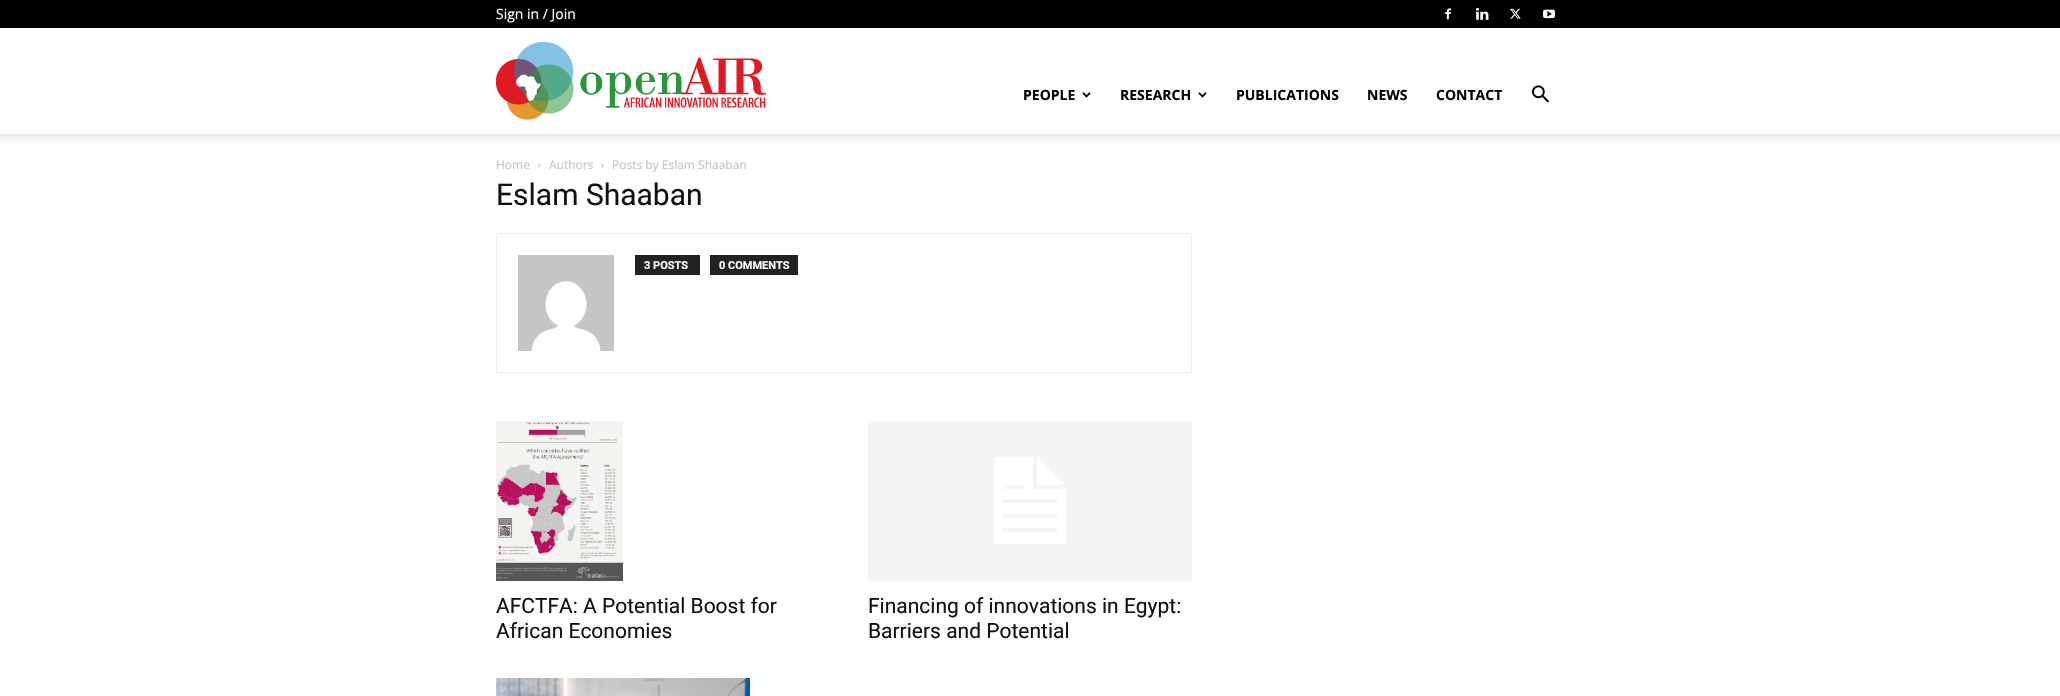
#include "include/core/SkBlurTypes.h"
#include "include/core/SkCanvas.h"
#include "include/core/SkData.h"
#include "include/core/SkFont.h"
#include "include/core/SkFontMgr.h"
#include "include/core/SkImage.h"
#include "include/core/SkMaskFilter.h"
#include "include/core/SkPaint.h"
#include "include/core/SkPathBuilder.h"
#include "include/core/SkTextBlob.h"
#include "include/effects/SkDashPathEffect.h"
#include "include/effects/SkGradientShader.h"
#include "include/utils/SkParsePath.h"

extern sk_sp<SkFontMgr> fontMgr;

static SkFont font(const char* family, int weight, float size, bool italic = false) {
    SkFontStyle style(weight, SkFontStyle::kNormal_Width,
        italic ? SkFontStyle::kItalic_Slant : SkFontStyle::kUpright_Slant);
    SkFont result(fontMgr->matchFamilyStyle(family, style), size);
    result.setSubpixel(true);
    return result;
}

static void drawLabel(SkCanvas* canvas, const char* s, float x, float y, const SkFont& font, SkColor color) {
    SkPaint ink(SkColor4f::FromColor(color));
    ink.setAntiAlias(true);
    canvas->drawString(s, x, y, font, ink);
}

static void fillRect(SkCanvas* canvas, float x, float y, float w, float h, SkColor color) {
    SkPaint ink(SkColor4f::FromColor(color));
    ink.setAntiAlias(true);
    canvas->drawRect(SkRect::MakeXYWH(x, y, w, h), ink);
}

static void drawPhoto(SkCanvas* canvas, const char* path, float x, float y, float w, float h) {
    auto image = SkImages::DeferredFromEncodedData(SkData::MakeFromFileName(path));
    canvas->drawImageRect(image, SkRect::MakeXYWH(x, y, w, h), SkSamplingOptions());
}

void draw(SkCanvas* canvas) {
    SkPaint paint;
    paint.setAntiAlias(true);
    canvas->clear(0xFFFFFFFF);
    fillRect(canvas, 0, 0, 2060, 28, 0xFF000000);
    SkFont font1 = font("Open Sans", 400, 14);
    drawLabel(canvas, "Sign in / Join", 496, 19, font1, 0xFFFFFFFF);
    drawPhoto(canvas, "assets/img1.png", 1445, 8, 6, 12);
    drawPhoto(canvas, "assets/img2.png", 1476, 7, 13, 13);
    drawPhoto(canvas, "assets/img3.png", 1510, 8, 11, 11);
    drawPhoto(canvas, "assets/img4.png", 1543, 9, 12, 10);
    drawPhoto(canvas, "assets/img5.png", 496, 42, 270, 78);
    SkFont font2 = font("Open Sans", 700, 14);
    drawLabel(canvas, "PEOPLE", 1023, 100, font2, 0xFF000000);
    drawPhoto(canvas, "assets/img6.png", 1082, 92, 9, 6);
    drawLabel(canvas, "RESEARCH", 1120, 100, font2, 0xFF000000);
    drawPhoto(canvas, "assets/img6.png", 1198, 92, 9, 6);
    drawLabel(canvas, "PUBLICATIONS", 1236, 100, font2, 0xFF000000);
    drawLabel(canvas, "NEWS", 1367, 100, font2, 0xFF000000);
    drawLabel(canvas, "CONTACT", 1436, 100, font2, 0xFF000000);
    drawPhoto(canvas, "assets/img7.png", 1532, 85, 17, 18);
    drawPhoto(canvas, "assets/img8.png", 0, 134, 2060, 9);
    SkFont font3 = font("Open Sans", 400, 12);
    drawLabel(canvas, "Home", 496, 169, font3, 0xFFC3C3C3);
    drawPhoto(canvas, "assets/img9.png", 538, 163, 3, 5);
    drawLabel(canvas, "Authors", 549, 169, font3, 0xFFC3C3C3);
    drawPhoto(canvas, "assets/img9.png", 601, 163, 3, 5);
    drawLabel(canvas, "Posts by Eslam Shaaban", 612, 169, font3, 0xFFC3C3C3);
    SkFont font4 = font("Roboto", 400, 30);
    drawLabel(canvas, "Eslam Shaaban", 496, 205, font4, 0xFF111111);
    paint.setStroke(true);
    paint.setStrokeWidth(1);
    paint.setColor(0xFFEDEDED);
    canvas->drawRect(SkRect::MakeXYWH(496.5f, 233.5f, 695, 139), paint);
    drawPhoto(canvas, "assets/img10.png", 518, 255, 96, 96);
    fillRect(canvas, 635, 255, 65, 20, 0xFF222222);
    SkFont font5 = font("Roboto", 700, 11);
    drawLabel(canvas, "3 POSTS", 644, 269, font5, 0xFFFFFFFF);
    fillRect(canvas, 710, 255, 88, 20, 0xFF222222);
    drawLabel(canvas, "0 COMMENTS", 719, 269, font5, 0xFFFFFFFF);
    drawPhoto(canvas, "assets/img11.png", 496, 421, 127, 160);
    SkFont font6 = font("Roboto", 400, 21);
    drawLabel(canvas, "AFCTFA: A Potential Boost for", 496, 613, font6, 0xFF111111);
    drawLabel(canvas, "African Economies", 496, 638, font6, 0xFF111111);
    drawPhoto(canvas, "assets/img12.png", 868, 421, 324, 160);
    drawLabel(canvas, "Financing of innovations in Egypt:", 868, 613, font6, 0xFF111111);
    drawLabel(canvas, "Barriers and Potential", 868, 638, font6, 0xFF111111);
    drawPhoto(canvas, "assets/img13.png", 496, 678, 254, 18);
}
